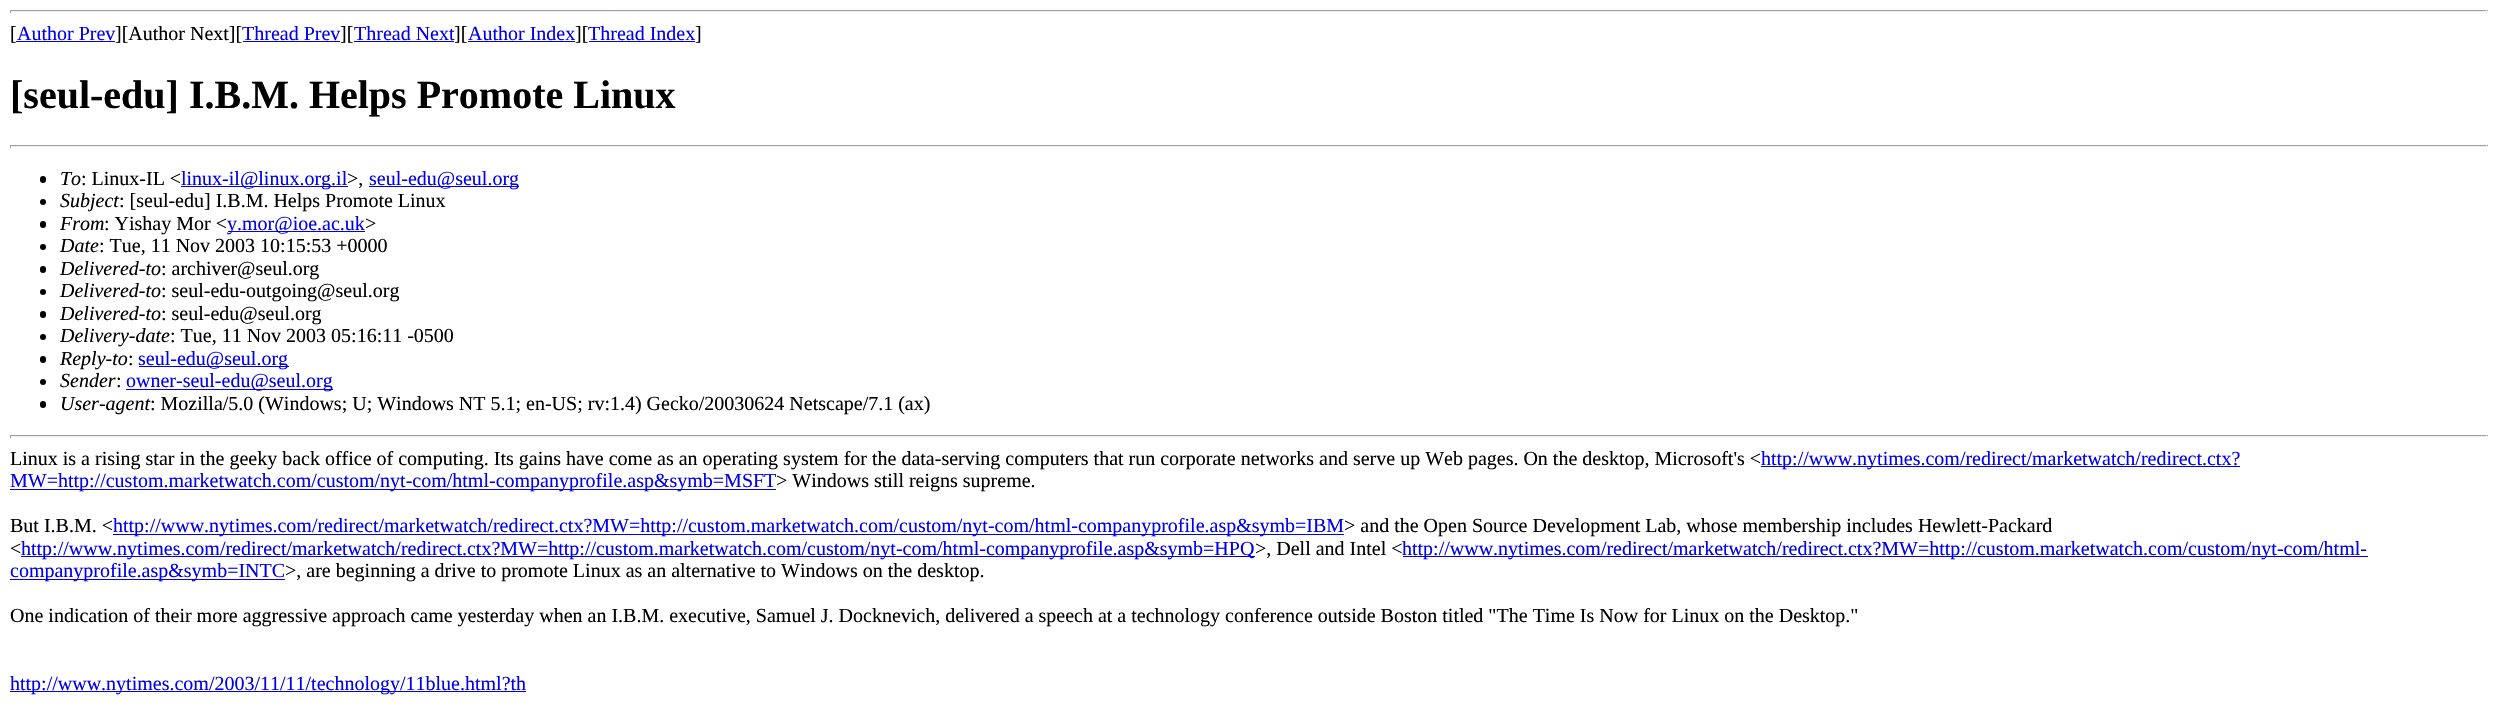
#include "include/core/SkBlurTypes.h"
#include "include/core/SkCanvas.h"
#include "include/core/SkData.h"
#include "include/core/SkFont.h"
#include "include/core/SkFontMgr.h"
#include "include/core/SkImage.h"
#include "include/core/SkMaskFilter.h"
#include "include/core/SkPaint.h"
#include "include/core/SkPathBuilder.h"
#include "include/core/SkTextBlob.h"
#include "include/effects/SkDashPathEffect.h"
#include "include/effects/SkGradientShader.h"
#include "include/utils/SkParsePath.h"

extern sk_sp<SkFontMgr> fontMgr;

static SkFont font(const char* family, int weight, float size, bool italic = false) {
    SkFontStyle style(weight, SkFontStyle::kNormal_Width,
        italic ? SkFontStyle::kItalic_Slant : SkFontStyle::kUpright_Slant);
    SkFont result(fontMgr->matchFamilyStyle(family, style), size);
    result.setSubpixel(true);
    return result;
}

static void drawLabel(SkCanvas* canvas, const char* s, float x, float y, const SkFont& font, SkColor color) {
    SkPaint ink(SkColor4f::FromColor(color));
    ink.setAntiAlias(true);
    canvas->drawString(s, x, y, font, ink);
}

static void fillRect(SkCanvas* canvas, float x, float y, float w, float h, SkColor color) {
    SkPaint ink(SkColor4f::FromColor(color));
    ink.setAntiAlias(true);
    canvas->drawRect(SkRect::MakeXYWH(x, y, w, h), ink);
}

static void fillRRect(SkCanvas* canvas, float x, float y, float w, float h, float radius, SkColor color) {
    SkPaint ink(SkColor4f::FromColor(color));
    ink.setAntiAlias(true);
    canvas->drawRoundRect(SkRect::MakeXYWH(x, y, w, h), radius, radius, ink);
}

void draw(SkCanvas* canvas) {
    SkPaint paint;
    paint.setAntiAlias(true);
    canvas->clear(0xFFFFFFFF);
    fillRect(canvas, 10, 10, 2478, 1, 0xFF9F9F9F);
    fillRect(canvas, 2486, 10, 1, 3, 0xFFEEEEEE);
    fillRect(canvas, 10, 11, 2478, 1, 0xFFEEEEEE);
    fillRect(canvas, 10, 10, 1, 3, 0xFF9F9F9F);
    SkFont font1 = font("Liberation Serif", 400, 20);
    drawLabel(canvas, "[", 10, 40, font1, 0xFF000000);
    drawLabel(canvas, "Author Prev", 17, 40, font1, 0xFF0000EE);
    fillRect(canvas, 16, 41, 99, 1, 0xFF0000EE);
    drawLabel(canvas, "][Author Next][", 115, 40, font1, 0xFF000000);
    drawLabel(canvas, "Thread Prev", 242, 40, font1, 0xFF0000EE);
    fillRect(canvas, 243, 41, 97, 1, 0xFF0000EE);
    drawLabel(canvas, "][", 340, 40, font1, 0xFF000000);
    drawLabel(canvas, "Thread Next", 354, 40, font1, 0xFF0000EE);
    fillRect(canvas, 354, 41, 100, 1, 0xFF0000EE);
    drawLabel(canvas, "][", 454, 40, font1, 0xFF000000);
    drawLabel(canvas, "Author Index", 468, 40, font1, 0xFF0000EE);
    fillRect(canvas, 468, 41, 107, 1, 0xFF0000EE);
    drawLabel(canvas, "][", 575, 40, font1, 0xFF000000);
    drawLabel(canvas, "Thread Index", 588, 40, font1, 0xFF0000EE);
    fillRect(canvas, 589, 41, 106, 1, 0xFF0000EE);
    drawLabel(canvas, "]", 695, 40, font1, 0xFF000000);
    SkFont font2 = font("Liberation Serif", 700, 40);
    drawLabel(canvas, "[seul-edu] I.B.M. Helps Promote Linux", 10, 108, font2, 0xFF000000);
    fillRect(canvas, 10, 145, 2478, 1, 0xFF9F9F9F);
    fillRect(canvas, 2486, 145, 1, 3, 0xFFEEEEEE);
    fillRect(canvas, 10, 146, 2478, 1, 0xFFEEEEEE);
    fillRect(canvas, 10, 145, 1, 3, 0xFF9F9F9F);
    fillRRect(canvas, 40, 176, 6, 7, 3, 0xFF000000);
    SkFont font3 = font("Liberation Serif", 400, 20, true);
    drawLabel(canvas, "To", 60, 185, font3, 0xFF000000);
    drawLabel(canvas, ": Linux-IL <", 81, 185, font1, 0xFF000000);
    fillRect(canvas, 181, 186, 167, 1, 0xFF0000EE);
    drawLabel(canvas, "linux-il@linux.org.il", 181, 185, font1, 0xFF0000EE);
    drawLabel(canvas, ">,", 347, 185, font1, 0xFF000000);
    fillRect(canvas, 369, 186, 150, 1, 0xFF0000EE);
    drawLabel(canvas, "seul-edu@seul.org", 369, 185, font1, 0xFF0000EE);
    paint.setColor(0xFF000000);
    canvas->drawCircle(43, 202, 3, paint);
    drawLabel(canvas, "Subject", 60, 207, font3, 0xFF000000);
    drawLabel(canvas, ": [seul-edu] I.B.M. Helps Promote Linux", 119, 207, font1, 0xFF000000);
    fillRRect(canvas, 40, 221, 6, 7, 3, 0xFF000000);
    drawLabel(canvas, "From", 60, 230, font3, 0xFF000000);
    drawLabel(canvas, ": Yishay Mor <", 104, 230, font1, 0xFF000000);
    fillRect(canvas, 228, 231, 137, 1, 0xFF0000EE);
    drawLabel(canvas, "y.mor@ioe.ac.uk", 227, 230, font1, 0xFF0000EE);
    drawLabel(canvas, ">", 365, 230, font1, 0xFF000000);
    canvas->drawCircle(43, 247, 3, paint);
    drawLabel(canvas, "Date", 60, 252, font3, 0xFF000000);
    drawLabel(canvas, ": Tue, 11 Nov 2003 10:15:53 +0000", 99, 252, font1, 0xFF000000);
    fillRRect(canvas, 40, 266, 6, 7, 3, 0xFF000000);
    drawLabel(canvas, "Delivered-to", 60, 275, font3, 0xFF000000);
    drawLabel(canvas, ": archiver@seul.org", 161, 275, font1, 0xFF000000);
    canvas->drawCircle(43, 292, 3, paint);
    drawLabel(canvas, "Delivered-to", 60, 297, font3, 0xFF000000);
    drawLabel(canvas, ": seul-edu-outgoing@seul.org", 161, 297, font1, 0xFF000000);
    fillRRect(canvas, 40, 311, 6, 7, 3, 0xFF000000);
    drawLabel(canvas, "Delivered-to", 60, 320, font3, 0xFF000000);
    drawLabel(canvas, ": seul-edu@seul.org", 161, 320, font1, 0xFF000000);
    canvas->drawCircle(43, 337, 3, paint);
    drawLabel(canvas, "Delivery-date", 60, 342, font3, 0xFF000000);
    drawLabel(canvas, ": Tue, 11 Nov 2003 05:16:11 -0500", 170, 342, font1, 0xFF000000);
    fillRRect(canvas, 40, 356, 6, 7, 3, 0xFF000000);
    drawLabel(canvas, "Reply-to", 60, 365, font3, 0xFF000000);
    drawLabel(canvas, ":", 128, 365, font1, 0xFF000000);
    fillRect(canvas, 139, 366, 150, 1, 0xFF0000EE);
    drawLabel(canvas, "seul-edu@seul.org", 138, 365, font1, 0xFF0000EE);
    canvas->drawCircle(43, 382, 3, paint);
    drawLabel(canvas, "Sender", 60, 387, font3, 0xFF000000);
    drawLabel(canvas, ":", 116, 387, font1, 0xFF000000);
    fillRect(canvas, 126, 389, 207, 1, 0xFF0000EE);
    drawLabel(canvas, "owner-seul-edu@seul.org", 126, 387, font1, 0xFF0000EE);
    fillRRect(canvas, 40, 401, 6, 7, 3, 0xFF000000);
    drawLabel(canvas, "User-agent", 60, 410, font3, 0xFF000000);
    drawLabel(canvas, ": Mozilla/5.0 (Windows; U; Windows NT 5.1; en-US; rv:1.4) Gecko/20030624 Netscape/7.1 (ax)", 150, 410, font1, 0xFF000000);
    fillRect(canvas, 10, 435, 2478, 1, 0xFF9F9F9F);
    fillRect(canvas, 2486, 435, 1, 3, 0xFFEEEEEE);
    fillRect(canvas, 10, 436, 2478, 1, 0xFFEEEEEE);
    fillRect(canvas, 10, 435, 1, 3, 0xFF9F9F9F);
    drawLabel(canvas, "Linux is a rising star in the geeky back office of computing. Its gains have come as an operating system for the data-serving computers that run corporate networks and serve up Web pages. On the desktop, Microsoft's <", 10, 465, font1, 0xFF000000);
    fillRect(canvas, 1761, 466, 479, 1, 0xFF0000EE);
    drawLabel(canvas, "http://www.nytimes.com/redirect/marketwatch/redirect.ctx?", 1761, 465, font1, 0xFF0000EE);
    fillRect(canvas, 10, 489, 766, 1, 0xFF0000EE);
    drawLabel(canvas, "MW=http://custom.marketwatch.com/custom/nyt-com/html-companyprofile.asp&symb=MSFT", 10, 487, font1, 0xFF0000EE);
    drawLabel(canvas, "> Windows still reigns supreme.", 776, 487, font1, 0xFF000000);
    drawLabel(canvas, "But I.B.M. <", 10, 532, font1, 0xFF000000);
    fillRect(canvas, 113, 534, 1231, 1, 0xFF0000EE);
    drawLabel(canvas, "http://www.nytimes.com/redirect/marketwatch/redirect.ctx?MW=http://custom.marketwatch.com/custom/nyt-com/html-companyprofile.asp&symb=IBM", 113, 532, font1, 0xFF0000EE);
    drawLabel(canvas, "> and the Open Source Development Lab, whose membership includes Hewlett-Packard", 1344, 532, font1, 0xFF000000);
    drawLabel(canvas, "<", 10, 555, font1, 0xFF000000);
    fillRect(canvas, 21, 556, 1234, 1, 0xFF0000EE);
    drawLabel(canvas, "http://www.nytimes.com/redirect/marketwatch/redirect.ctx?MW=http://custom.marketwatch.com/custom/nyt-com/html-companyprofile.asp&symb=HPQ", 21, 555, font1, 0xFF0000EE);
    drawLabel(canvas, ">, Dell and Intel <", 1255, 555, font1, 0xFF000000);
    fillRect(canvas, 1403, 556, 965, 1, 0xFF0000EE);
    drawLabel(canvas, "http://www.nytimes.com/redirect/marketwatch/redirect.ctx?MW=http://custom.marketwatch.com/custom/nyt-com/html-", 1402, 555, font1, 0xFF0000EE);
    fillRect(canvas, 10, 579, 275, 1, 0xFF0000EE);
    drawLabel(canvas, "companyprofile.asp&symb=INTC", 10, 577, font1, 0xFF0000EE);
    drawLabel(canvas, ">, are beginning a drive to promote Linux as an alternative to Windows on the desktop.", 285, 577, font1, 0xFF000000);
    drawLabel(canvas, "One indication of their more aggressive approach came yesterday when an I.B.M. executive, Samuel J. Docknevich, delivered a speech at a technology conference outside Boston titled \"The Time Is Now for Linux on the Desktop.\"", 10, 622, font1, 0xFF000000);
    fillRect(canvas, 10, 691, 516, 1, 0xFF0000EE);
    drawLabel(canvas, "http://www.nytimes.com/2003/11/11/technology/11blue.html?th", 10, 690, font1, 0xFF0000EE);
}
